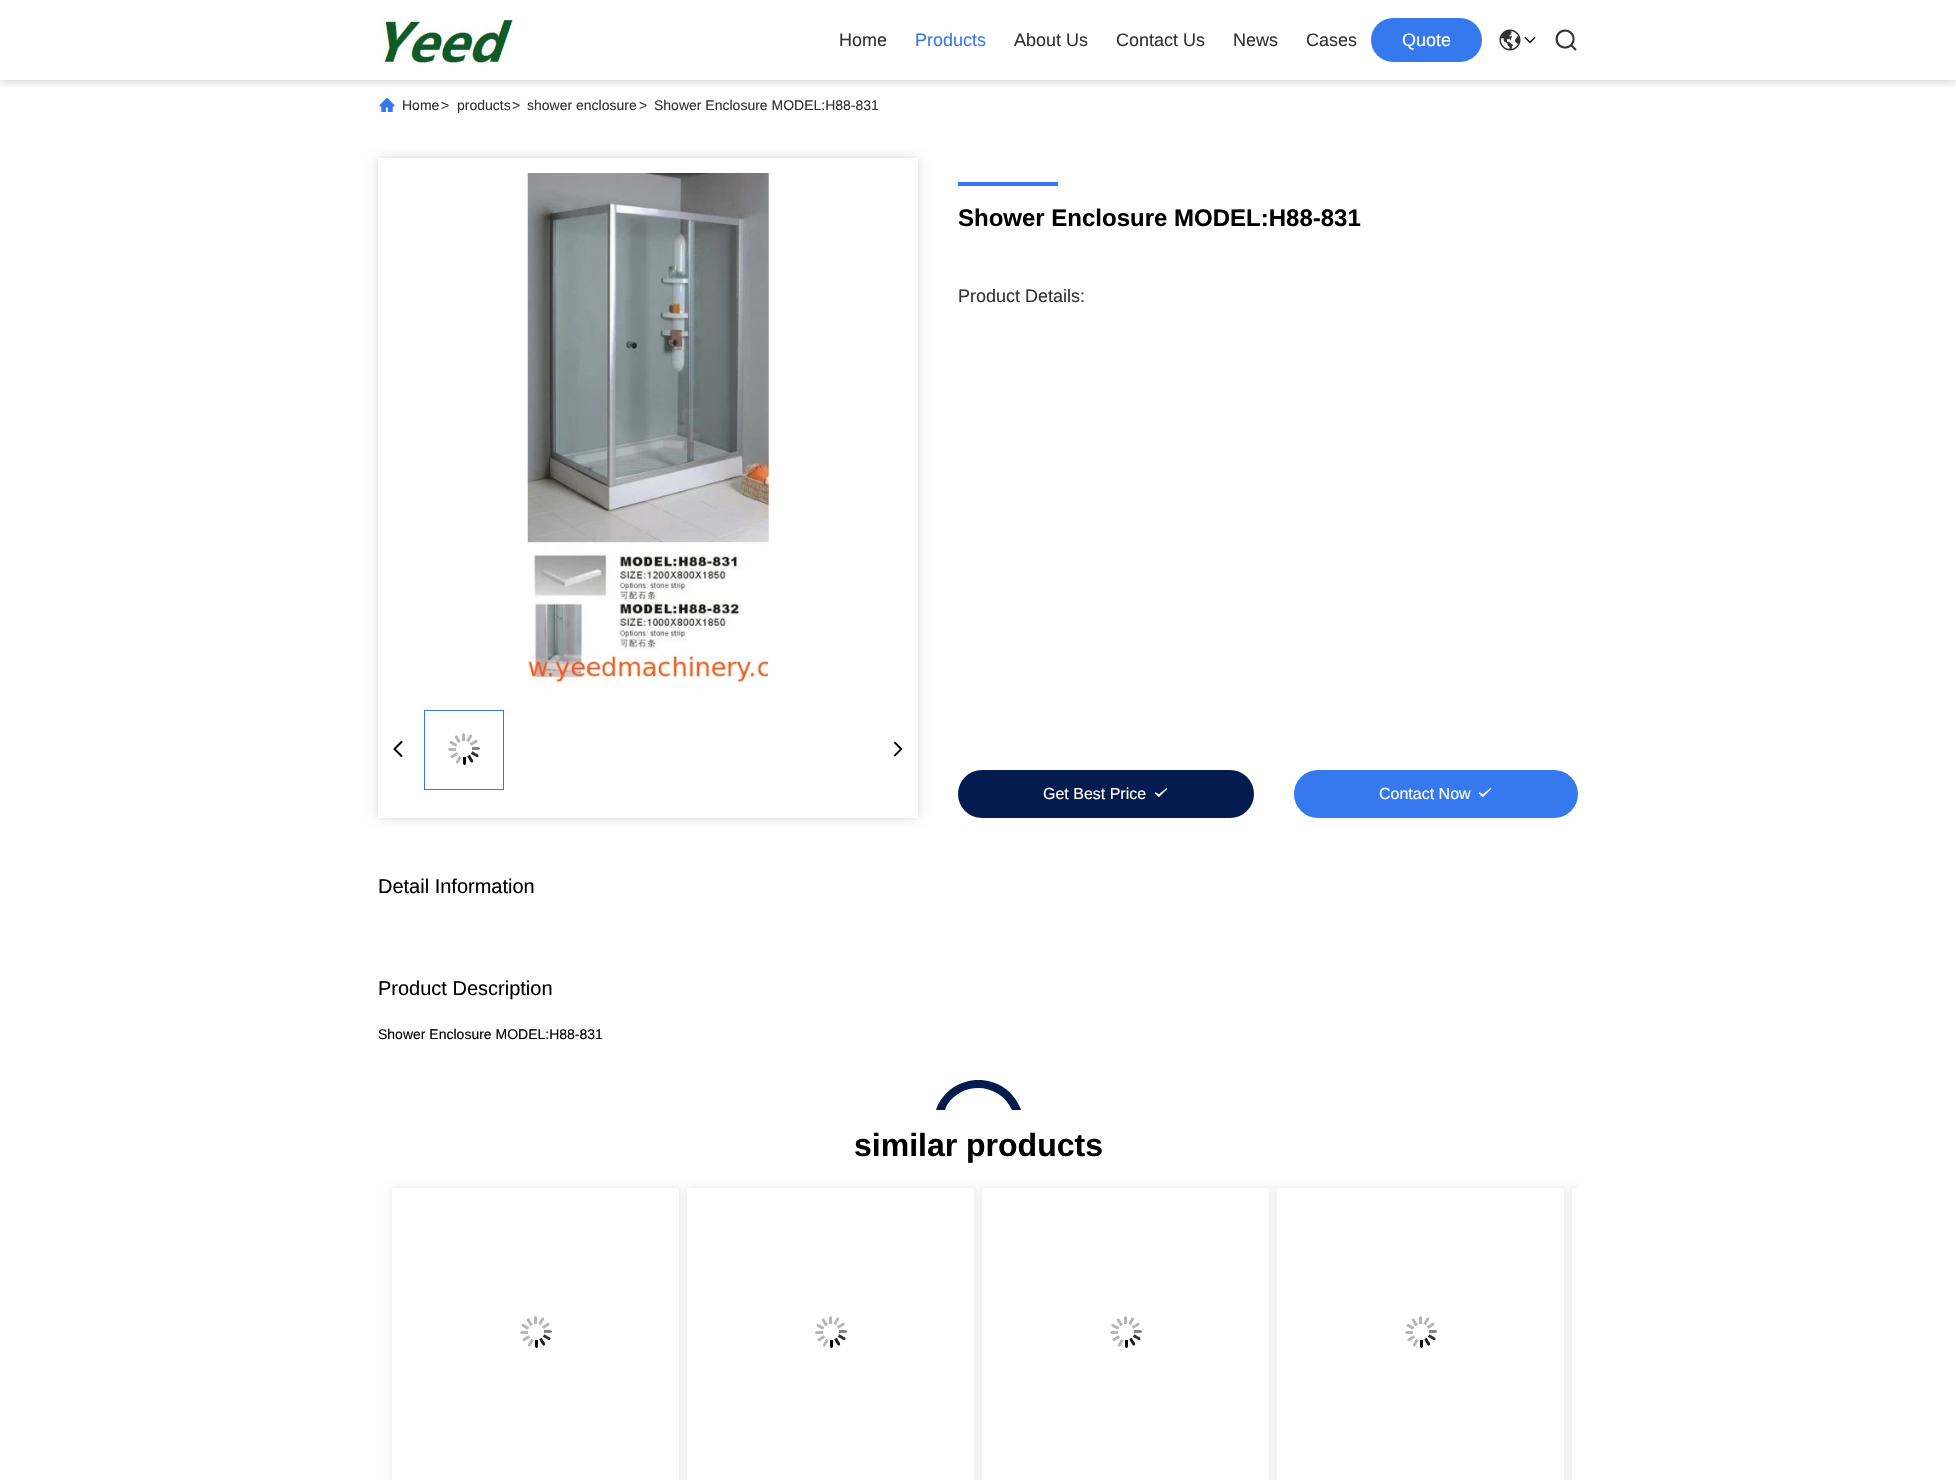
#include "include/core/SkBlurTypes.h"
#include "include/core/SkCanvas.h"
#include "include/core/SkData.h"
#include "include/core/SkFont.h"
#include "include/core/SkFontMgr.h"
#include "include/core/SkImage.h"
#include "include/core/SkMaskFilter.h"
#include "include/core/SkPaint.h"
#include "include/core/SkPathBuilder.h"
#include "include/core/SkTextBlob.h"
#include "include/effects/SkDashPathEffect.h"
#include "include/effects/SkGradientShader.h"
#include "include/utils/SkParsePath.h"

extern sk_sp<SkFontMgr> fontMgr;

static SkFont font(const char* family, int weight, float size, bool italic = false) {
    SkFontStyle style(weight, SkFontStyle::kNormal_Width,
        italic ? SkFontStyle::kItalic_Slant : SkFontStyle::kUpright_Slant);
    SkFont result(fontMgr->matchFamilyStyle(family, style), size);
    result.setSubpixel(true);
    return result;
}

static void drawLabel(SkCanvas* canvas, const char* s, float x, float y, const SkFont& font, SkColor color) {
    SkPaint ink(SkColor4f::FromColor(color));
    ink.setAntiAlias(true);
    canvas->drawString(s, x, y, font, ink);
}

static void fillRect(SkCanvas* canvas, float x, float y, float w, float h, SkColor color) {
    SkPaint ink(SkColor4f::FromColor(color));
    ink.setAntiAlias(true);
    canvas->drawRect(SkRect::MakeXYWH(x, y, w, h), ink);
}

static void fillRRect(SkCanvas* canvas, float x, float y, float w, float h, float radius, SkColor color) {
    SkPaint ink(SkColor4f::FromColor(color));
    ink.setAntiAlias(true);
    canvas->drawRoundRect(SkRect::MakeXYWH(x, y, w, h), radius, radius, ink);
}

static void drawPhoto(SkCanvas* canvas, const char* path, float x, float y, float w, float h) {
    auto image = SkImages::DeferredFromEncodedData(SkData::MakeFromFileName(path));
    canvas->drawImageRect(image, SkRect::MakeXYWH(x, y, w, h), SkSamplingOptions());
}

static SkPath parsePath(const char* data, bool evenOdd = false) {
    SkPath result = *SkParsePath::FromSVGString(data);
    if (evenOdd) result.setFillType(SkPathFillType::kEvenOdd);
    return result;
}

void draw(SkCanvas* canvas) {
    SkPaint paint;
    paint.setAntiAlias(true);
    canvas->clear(0xFFFFFFFF);
    canvas->save();
    canvas->clipRect(SkRect::MakeXYWH(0, 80, 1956, 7));
    paint.setColor(0x40000000);
    paint.setMaskFilter(SkMaskFilter::MakeBlur(kNormal_SkBlurStyle, 5));
    canvas->drawRect(SkRect::MakeXYWH(0, 0, 1956, 80), paint);
    paint.setMaskFilter(nullptr);
    canvas->restore();
    drawPhoto(canvas, "assets/img1.png", 378, 16, 136, 48);
    SkFont font1 = font("Liberation Sans", 400, 18);
    drawLabel(canvas, "Home", 839, 46, font1, 0xFF333333);
    drawLabel(canvas, "Products", 915, 46, font1, 0xFF3679EF);
    drawLabel(canvas, "About Us", 1014, 46, font1, 0xFF333333);
    drawLabel(canvas, "Contact Us", 1116, 46, font1, 0xFF333333);
    drawLabel(canvas, "News", 1233, 46, font1, 0xFF333333);
    drawLabel(canvas, "Cases", 1306, 46, font1, 0xFF333333);
    fillRRect(canvas, 1371, 18, 111, 44, 22, 0xFF3679EF);
    drawLabel(canvas, "Quote", 1402, 46, font1, 0xFFFFFFFF);
    drawPhoto(canvas, "assets/img2.png", 1499, 29, 22, 22);
    drawPhoto(canvas, "assets/img3.png", 1524, 37, 12, 6);
    drawPhoto(canvas, "assets/img4.png", 1555, 29, 22, 22);
    drawPhoto(canvas, "assets/img5.png", 379, 97, 16, 15);
    SkFont font2 = font("Liberation Sans", 400, 14);
    drawLabel(canvas, "Home", 402, 110, font2, 0xFF333333);
    drawLabel(canvas, ">", 441, 110, font2, 0xFF333333);
    drawLabel(canvas, "products", 457, 110, font2, 0xFF333333);
    drawLabel(canvas, ">", 512, 110, font2, 0xFF333333);
    drawLabel(canvas, "shower enclosure", 527, 110, font2, 0xFF333333);
    drawLabel(canvas, ">", 639, 110, font2, 0xFF333333);
    drawLabel(canvas, "Shower Enclosure MODEL:H88-831", 654, 110, font2, 0xFF333333);
    canvas->save();
    canvas->clipPath(parsePath("M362 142H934V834H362ZM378 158H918V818H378Z", true), true);
    paint.setColor(0x26000000);
    paint.setMaskFilter(SkMaskFilter::MakeBlur(kNormal_SkBlurStyle, 5));
    canvas->drawRect(SkRect::MakeXYWH(378, 158, 540, 660), paint);
    paint.setMaskFilter(nullptr);
    canvas->restore();
    drawPhoto(canvas, "assets/img6.png", 527, 173, 242, 510);
    drawPhoto(canvas, "assets/img7.png", 393, 740, 10, 17);
    paint.setStroke(true);
    paint.setStrokeWidth(1);
    paint.setColor(0xFF3679EF);
    canvas->drawRect(SkRect::MakeXYWH(424.5f, 710.5f, 79, 79), paint);
    drawPhoto(canvas, "assets/img8.png", 448, 733, 32, 32);
    drawPhoto(canvas, "assets/img9.png", 894, 741, 8, 16);
    fillRect(canvas, 958, 182, 100, 4, 0xFF3679EF);
    SkFont font3 = font("Liberation Sans", 700, 24);
    drawLabel(canvas, "Shower Enclosure MODEL:H88-831", 958, 226, font3, 0xFF000000);
    drawLabel(canvas, "Product Details:", 958, 302, font1, 0xFF333333);
    fillRRect(canvas, 958, 770, 296, 48, 24, 0xFF031B4E);
    SkFont font4 = font("Liberation Sans", 400, 16);
    drawLabel(canvas, "Get Best Price", 1043, 799, font4, 0xFFFFFFFF);
    drawPhoto(canvas, "assets/img10.png", 1154, 788, 14, 9);
    fillRRect(canvas, 1294, 770, 284, 48, 24, 0xFF3679EF);
    drawLabel(canvas, "Contact Now", 1379, 799, font4, 0xFFFFFFFF);
    drawPhoto(canvas, "assets/img11.png", 1478, 788, 14, 9);
    SkFont font5 = font("Liberation Sans", 400, 20);
    drawLabel(canvas, "Detail Information", 378, 893, font5, 0xFF000000);
    drawLabel(canvas, "Product Description", 378, 995, font5, 0xFF000000);
    drawLabel(canvas, "Shower Enclosure MODEL:H88-831", 378, 1039, font2, 0xFF000000);
    paint.setStroke(false);
    paint.setColor(0xFF031B4E);
    canvas->drawPath(parsePath("M936 1110C950 1070 1007 1070 1021 1110H1012C1000 1083 963 1080 947 1105L945 1110Z", true), paint);
    SkFont font6 = font("Liberation Sans", 700, 32);
    drawLabel(canvas, "similar products", 854, 1156, font6, 0xFF000000);
    canvas->save();
    canvas->clipPath(parsePath("M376 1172H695V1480H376ZM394 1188H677C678 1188 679 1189 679 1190V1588C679 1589 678 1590 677 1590H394C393 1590 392 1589 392 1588V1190C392 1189 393 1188 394 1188Z", true), true);
    paint.setColor(0x1A000000);
    paint.setMaskFilter(SkMaskFilter::MakeBlur(kNormal_SkBlurStyle, 5));
    canvas->drawRoundRect(SkRect::MakeXYWH(392, 1188, 287, 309), 2, 2, paint);
    paint.setMaskFilter(nullptr);
    canvas->restore();
    drawPhoto(canvas, "assets/img8.png", 520, 1316, 32, 32);
    paint.setMaskFilter(SkMaskFilter::MakeBlur(kNormal_SkBlurStyle, 5));
    canvas->drawRoundRect(SkRect::MakeXYWH(687, 1188, 287, 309), 2, 2, paint);
    paint.setMaskFilter(nullptr);
    fillRRect(canvas, 687, 1188, 287, 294, 2, 0xFFFFFFFF);
    drawPhoto(canvas, "assets/img8.png", 815, 1316, 32, 32);
    paint.setMaskFilter(SkMaskFilter::MakeBlur(kNormal_SkBlurStyle, 5));
    canvas->drawRoundRect(SkRect::MakeXYWH(982, 1188, 287, 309), 2, 2, paint);
    paint.setMaskFilter(nullptr);
    fillRRect(canvas, 982, 1188, 287, 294, 2, 0xFFFFFFFF);
    drawPhoto(canvas, "assets/img8.png", 1110, 1316, 32, 32);
    paint.setMaskFilter(SkMaskFilter::MakeBlur(kNormal_SkBlurStyle, 5));
    canvas->drawRoundRect(SkRect::MakeXYWH(1277, 1188, 287, 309), 2, 2, paint);
    paint.setMaskFilter(nullptr);
    fillRRect(canvas, 1277, 1188, 287, 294, 2, 0xFFFFFFFF);
    drawPhoto(canvas, "assets/img8.png", 1405, 1316, 32, 32);
    canvas->save();
    canvas->clipRect(SkRect::MakeXYWH(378, 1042, 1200, 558));
    paint.setMaskFilter(SkMaskFilter::MakeBlur(kNormal_SkBlurStyle, 5));
    canvas->drawRoundRect(SkRect::MakeXYWH(1572, 1188, 287, 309), 2, 2, paint);
    paint.setMaskFilter(nullptr);
    canvas->restore();
    paint.setColor(0xFFFFFFFF);
    canvas->drawPath(parsePath("M1574 1188H1578V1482H1574C1573 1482 1572 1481 1572 1480V1190C1572 1189 1573 1188 1574 1188Z"), paint);
}
